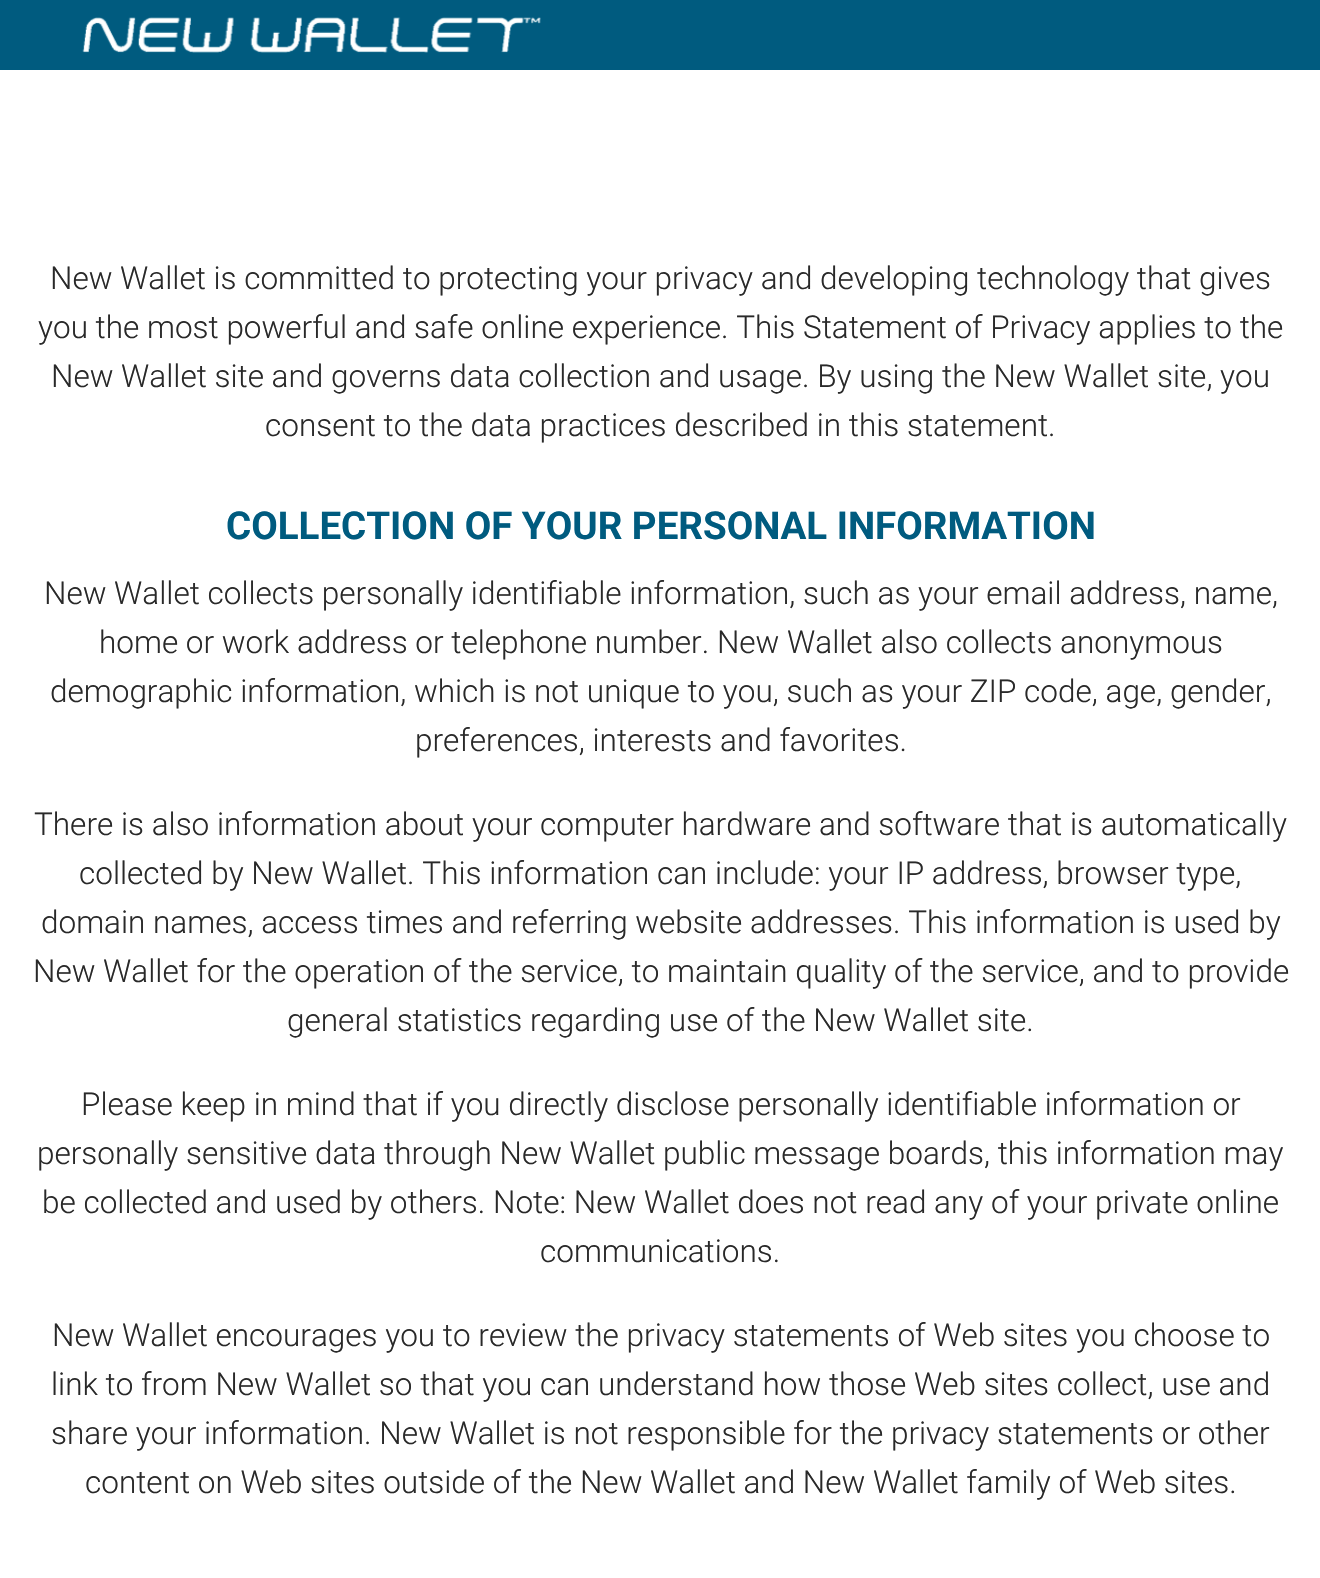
#include "include/core/SkBlurTypes.h"
#include "include/core/SkCanvas.h"
#include "include/core/SkData.h"
#include "include/core/SkFont.h"
#include "include/core/SkFontMgr.h"
#include "include/core/SkImage.h"
#include "include/core/SkMaskFilter.h"
#include "include/core/SkPaint.h"
#include "include/core/SkPathBuilder.h"
#include "include/core/SkTextBlob.h"
#include "include/effects/SkDashPathEffect.h"
#include "include/effects/SkGradientShader.h"
#include "include/utils/SkParsePath.h"

extern sk_sp<SkFontMgr> fontMgr;

static SkFont font(const char* family, int weight, float size, bool italic = false) {
    SkFontStyle style(weight, SkFontStyle::kNormal_Width,
        italic ? SkFontStyle::kItalic_Slant : SkFontStyle::kUpright_Slant);
    SkFont result(fontMgr->matchFamilyStyle(family, style), size);
    result.setSubpixel(true);
    return result;
}

static void drawLabel(SkCanvas* canvas, const char* s, float x, float y, const SkFont& font, SkColor color) {
    SkPaint ink(SkColor4f::FromColor(color));
    ink.setAntiAlias(true);
    canvas->drawString(s, x, y, font, ink);
}

static void fillRect(SkCanvas* canvas, float x, float y, float w, float h, SkColor color) {
    SkPaint ink(SkColor4f::FromColor(color));
    ink.setAntiAlias(true);
    canvas->drawRect(SkRect::MakeXYWH(x, y, w, h), ink);
}

static void drawPhoto(SkCanvas* canvas, const char* path, float x, float y, float w, float h) {
    auto image = SkImages::DeferredFromEncodedData(SkData::MakeFromFileName(path));
    canvas->drawImageRect(image, SkRect::MakeXYWH(x, y, w, h), SkSamplingOptions());
}

void draw(SkCanvas* canvas) {
    SkPaint paint;
    paint.setAntiAlias(true);
    canvas->clear(0xFFFFFFFF);
    fillRect(canvas, 0, 0, 1320, 70, 0xFF005B7F);
    drawPhoto(canvas, "assets/img1.png", 82, 17, 459, 36);
    SkFont font1 = font("Roboto", 300, 31.5f);
    drawLabel(canvas, "New Wallet is committed to protecting your privacy and developing technology that gives", 50, 289, font1, 0xFF292929);
    drawLabel(canvas, "you the most powerful and safe online experience. This Statement of Privacy applies to the", 38, 338, font1, 0xFF292929);
    drawLabel(canvas, "New Wallet site and governs data collection and usage. By using the New Wallet site, you", 51, 387, font1, 0xFF292929);
    drawLabel(canvas, "consent to the data practices described in this statement.", 265, 436, font1, 0xFF292929);
    SkFont font2 = font("Roboto", 700, 38.5f);
    drawLabel(canvas, "COLLECTION OF YOUR PERSONAL INFORMATION", 226, 539, font2, 0xFF005B7F);
    drawLabel(canvas, "New Wallet collects personally identifiable information, such as your email address, name,", 44, 604, font1, 0xFF292929);
    drawLabel(canvas, "home or work address or telephone number. New Wallet also collects anonymous", 99, 653, font1, 0xFF292929);
    drawLabel(canvas, "demographic information, which is not unique to you, such as your ZIP code, age, gender,", 50, 702, font1, 0xFF292929);
    drawLabel(canvas, "preferences, interests and favorites.", 415, 751, font1, 0xFF292929);
    drawLabel(canvas, "There is also information about your computer hardware and software that is automatically", 34, 835, font1, 0xFF292929);
    drawLabel(canvas, "collected by New Wallet. This information can include: your IP address, browser type,", 79, 884, font1, 0xFF292929);
    drawLabel(canvas, "domain names, access times and referring website addresses. This information is used by", 41, 933, font1, 0xFF292929);
    drawLabel(canvas, "New Wallet for the operation of the service, to maintain quality of the service, and to provide", 33, 982, font1, 0xFF292929);
    drawLabel(canvas, "general statistics regarding use of the New Wallet site.", 287, 1031, font1, 0xFF292929);
    drawLabel(canvas, "Please keep in mind that if you directly disclose personally identifiable information or", 81, 1115, font1, 0xFF292929);
    drawLabel(canvas, "personally sensitive data through New Wallet public message boards, this information may", 37, 1164, font1, 0xFF292929);
    drawLabel(canvas, "be collected and used by others. Note: New Wallet does not read any of your private online", 42, 1213, font1, 0xFF292929);
    drawLabel(canvas, "communications.", 540, 1262, font1, 0xFF292929);
    drawLabel(canvas, "New Wallet encourages you to review the privacy statements of Web sites you choose to", 52, 1346, font1, 0xFF292929);
    drawLabel(canvas, "link to from New Wallet so that you can understand how those Web sites collect, use and", 51, 1395, font1, 0xFF292929);
    drawLabel(canvas, "share your information. New Wallet is not responsible for the privacy statements or other", 51, 1444, font1, 0xFF292929);
    drawLabel(canvas, "content on Web sites outside of the New Wallet and New Wallet family of Web sites.", 85, 1493, font1, 0xFF292929);
}
